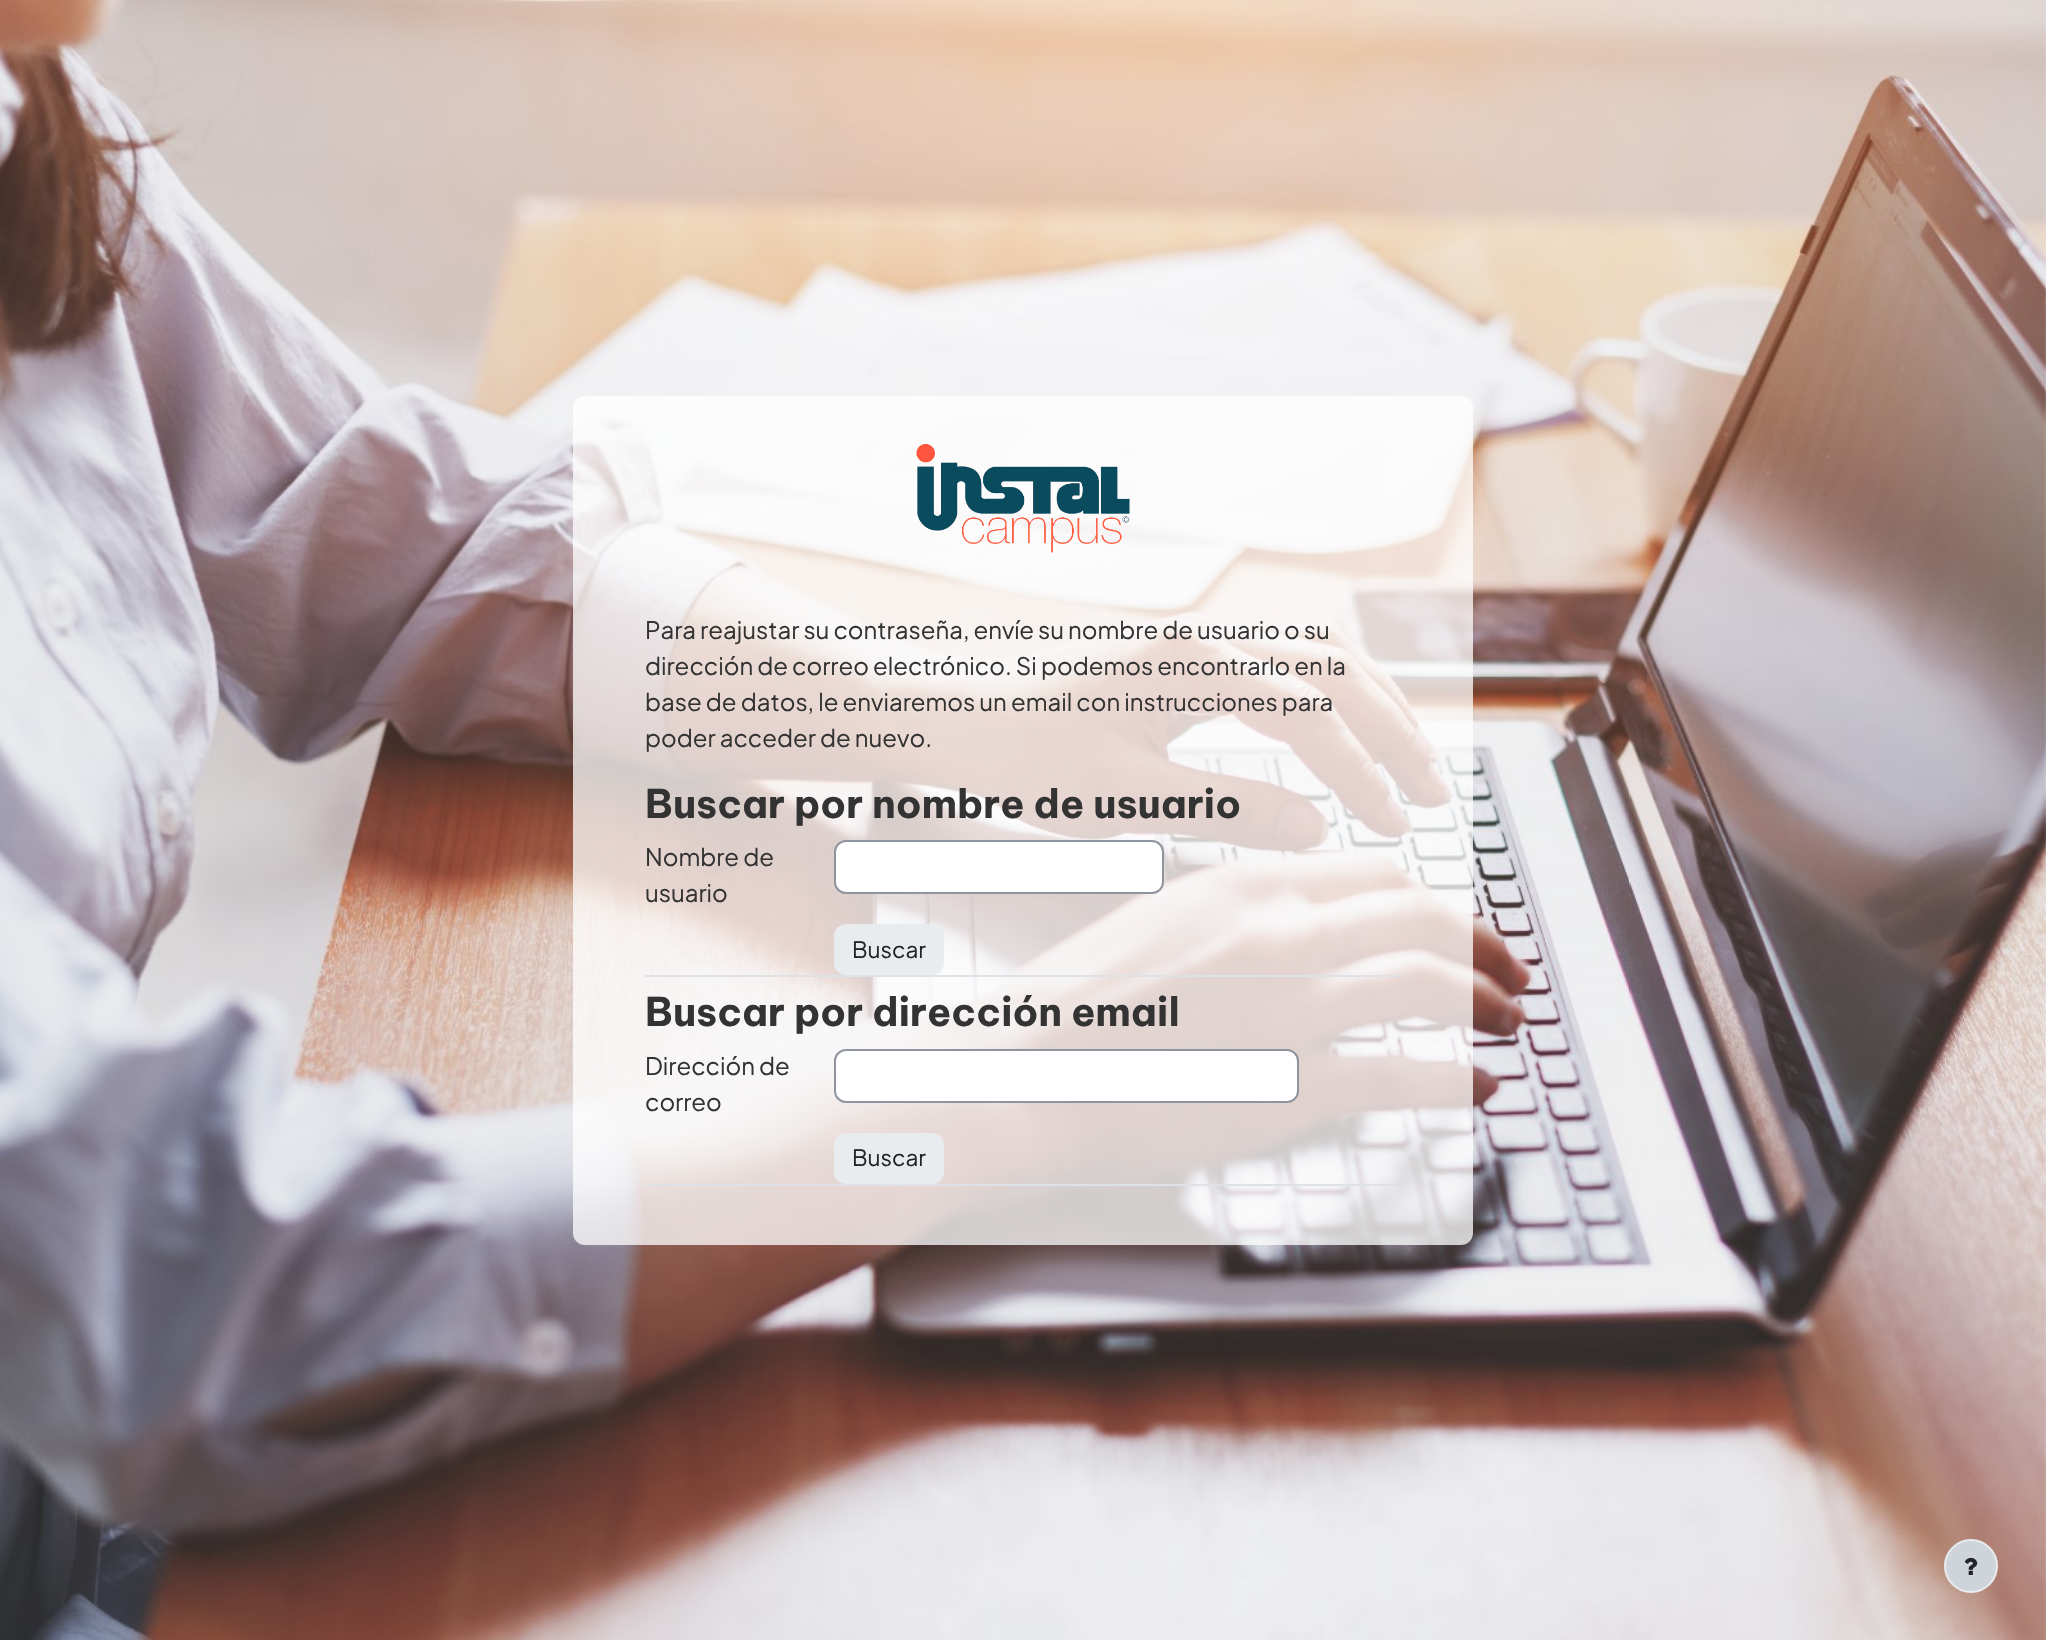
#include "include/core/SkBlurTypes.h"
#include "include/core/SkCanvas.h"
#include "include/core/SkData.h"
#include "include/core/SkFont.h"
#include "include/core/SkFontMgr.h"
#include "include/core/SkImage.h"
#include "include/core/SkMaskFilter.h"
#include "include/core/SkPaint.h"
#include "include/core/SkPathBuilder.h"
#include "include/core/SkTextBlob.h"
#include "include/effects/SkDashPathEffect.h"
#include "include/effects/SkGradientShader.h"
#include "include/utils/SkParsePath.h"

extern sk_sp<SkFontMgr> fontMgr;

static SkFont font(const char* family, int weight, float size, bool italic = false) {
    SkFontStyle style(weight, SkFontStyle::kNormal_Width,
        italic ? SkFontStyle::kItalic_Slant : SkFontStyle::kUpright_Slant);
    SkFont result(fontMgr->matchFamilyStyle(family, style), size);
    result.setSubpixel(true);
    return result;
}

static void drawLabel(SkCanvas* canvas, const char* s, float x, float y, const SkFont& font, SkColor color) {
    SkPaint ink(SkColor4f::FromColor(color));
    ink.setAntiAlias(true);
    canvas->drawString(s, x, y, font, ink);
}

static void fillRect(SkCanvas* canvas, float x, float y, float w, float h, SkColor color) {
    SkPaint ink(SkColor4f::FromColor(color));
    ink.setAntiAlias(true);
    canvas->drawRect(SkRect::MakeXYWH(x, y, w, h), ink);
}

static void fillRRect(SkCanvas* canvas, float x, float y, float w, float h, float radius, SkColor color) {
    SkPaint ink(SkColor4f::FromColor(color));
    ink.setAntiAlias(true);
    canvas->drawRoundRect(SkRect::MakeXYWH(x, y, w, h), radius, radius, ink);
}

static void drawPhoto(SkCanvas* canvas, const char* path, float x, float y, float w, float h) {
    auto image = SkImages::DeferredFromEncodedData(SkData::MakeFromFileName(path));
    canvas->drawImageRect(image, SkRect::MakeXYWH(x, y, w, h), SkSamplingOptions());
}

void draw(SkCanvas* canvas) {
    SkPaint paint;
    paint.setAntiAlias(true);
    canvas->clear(0xFFFFFFFF);
    drawPhoto(canvas, "assets/img1.png", 0, 0, 2046, 1640);
    fillRRect(canvas, 573, 396, 900, 849, 12, 0xBFFFFFFF);
    drawPhoto(canvas, "assets/img2.png", 916, 444, 214, 109);
    SkFont font1 = font("Plus Jakarta Sans", 400, 24);
    drawLabel(canvas, "Para reajustar su contraseña, envíe su nombre de usuario o su", 645, 639, font1, 0xFF333333);
    drawLabel(canvas, "dirección de correo electrónico. Si podemos encontrarlo en la", 645, 675, font1, 0xFF333333);
    drawLabel(canvas, "base de datos, le enviaremos un email con instrucciones para", 645, 711, font1, 0xFF333333);
    drawLabel(canvas, "poder acceder de nuevo.", 645, 747, font1, 0xFF333333);
    fillRect(canvas, 645, 975, 756, 2, 0xFFDEE2E6);
    SkFont font2 = font("Be Vietnam Pro", 700, 39.4f);
    drawLabel(canvas, "Buscar por nombre de usuario", 645, 818, font2, 0xFF333333);
    drawLabel(canvas, "Nombre de", 645, 866, font1, 0xFF333333);
    drawLabel(canvas, "usuario", 645, 902, font1, 0xFF333333);
    paint.setColor(0xFFFFFFFF);
    canvas->drawRoundRect(SkRect::MakeXYWH(835, 841, 328, 52), 11, 11, paint);
    paint.setStroke(true);
    paint.setStrokeWidth(2);
    paint.setColor(0xFF8F959E);
    canvas->drawRoundRect(SkRect::MakeXYWH(835, 841, 328, 52), 11, 11, paint);
    fillRRect(canvas, 834, 924, 110, 51, 12, 0xFFE9ECEF);
    SkFont font3 = font("Plus Jakarta Sans", 400, 22.5f);
    drawLabel(canvas, "Buscar", 852, 958, font3, 0xFF212529);
    fillRect(canvas, 645, 1184, 756, 2, 0xFFDEE2E6);
    drawLabel(canvas, "Buscar por dirección email", 645, 1026, font2, 0xFF333333);
    drawLabel(canvas, "Dirección de", 645, 1075, font1, 0xFF333333);
    drawLabel(canvas, "correo", 645, 1111, font1, 0xFF333333);
    paint.setStroke(false);
    paint.setColor(0xFFFFFFFF);
    canvas->drawRoundRect(SkRect::MakeXYWH(835, 1050, 463, 52), 11, 11, paint);
    paint.setStroke(true);
    paint.setColor(0xFF8F959E);
    canvas->drawRoundRect(SkRect::MakeXYWH(835, 1050, 463, 52), 11, 11, paint);
    fillRRect(canvas, 834, 1133, 110, 51, 12, 0xFFE9ECEF);
    drawLabel(canvas, "Buscar", 852, 1166, font3, 0xFF212529);
    paint.setStroke(false);
    paint.setColor(0xFFCED4DA);
    canvas->drawCircle(1971, 1566, 26, paint);
    paint.setStroke(true);
    paint.setColor(0xFFE9ECEF);
    canvas->drawCircle(1971, 1566, 26, paint);
    drawPhoto(canvas, "assets/img3.png", 1964, 1557, 14, 18);
}
